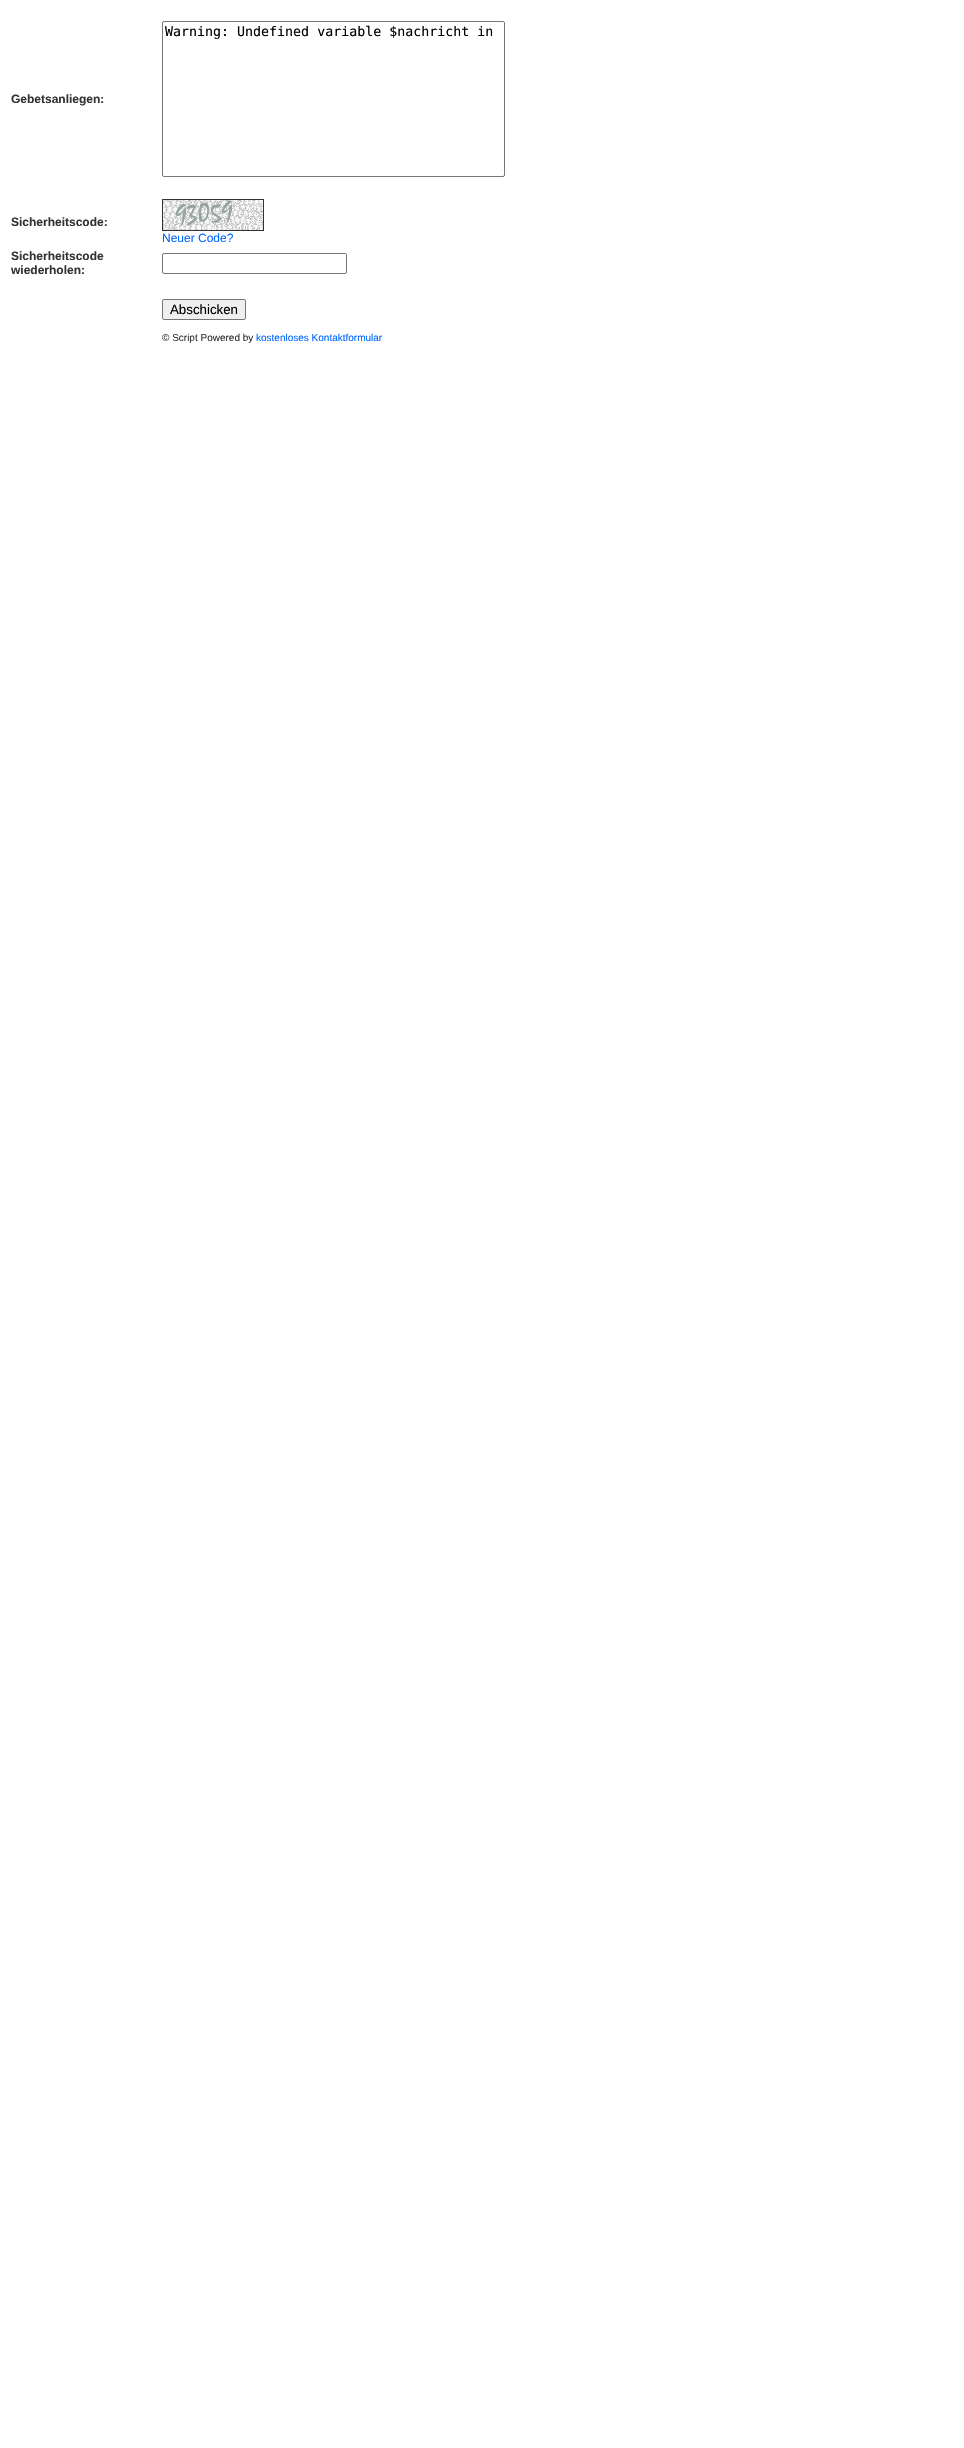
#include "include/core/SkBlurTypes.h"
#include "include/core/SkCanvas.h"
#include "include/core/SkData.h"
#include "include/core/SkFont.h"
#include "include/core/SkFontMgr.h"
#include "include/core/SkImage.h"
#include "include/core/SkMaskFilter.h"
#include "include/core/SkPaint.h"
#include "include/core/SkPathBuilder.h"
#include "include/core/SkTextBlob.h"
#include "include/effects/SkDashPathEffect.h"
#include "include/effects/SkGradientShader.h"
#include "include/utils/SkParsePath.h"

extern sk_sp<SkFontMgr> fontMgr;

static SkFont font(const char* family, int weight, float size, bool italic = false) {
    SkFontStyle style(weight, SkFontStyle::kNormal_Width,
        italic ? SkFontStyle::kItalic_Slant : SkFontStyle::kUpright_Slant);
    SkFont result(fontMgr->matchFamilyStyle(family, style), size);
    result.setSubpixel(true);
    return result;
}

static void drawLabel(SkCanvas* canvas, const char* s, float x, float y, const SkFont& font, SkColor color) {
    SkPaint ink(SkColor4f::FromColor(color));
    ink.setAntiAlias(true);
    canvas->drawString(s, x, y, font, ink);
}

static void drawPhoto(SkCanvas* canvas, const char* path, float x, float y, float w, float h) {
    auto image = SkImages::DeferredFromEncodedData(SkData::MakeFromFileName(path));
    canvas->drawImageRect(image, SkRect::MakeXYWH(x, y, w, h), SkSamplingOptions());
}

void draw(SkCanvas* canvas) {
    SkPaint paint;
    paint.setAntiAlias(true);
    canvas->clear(0xFFFFFFFF);
    paint.setStroke(true);
    paint.setStrokeWidth(1);
    paint.setColor(0xFF767676);
    canvas->drawRoundRect(SkRect::MakeXYWH(162.5f, 21.5f, 342, 155), 1.5f, 1.5f, paint);
    SkFont font1 = font("DejaVu Sans Mono", 400, 13.3f);
    drawLabel(canvas, "Warning: Undefined variable $nachricht in", 165, 36, font1, 0xFF000000);
    SkFont font2 = font("Liberation Sans", 700, 12);
    drawLabel(canvas, "Gebetsanliegen:", 11, 103, font2, 0xFF333333);
    drawLabel(canvas, "Sicherheitscode:", 11, 226, font2, 0xFF333333);
    paint.setColor(0xFF333333);
    canvas->drawRect(SkRect::MakeXYWH(162.5f, 199.5f, 101, 31), paint);
    drawPhoto(canvas, "assets/img1.png", 163, 200, 100, 30);
    SkFont font3 = font("Liberation Sans", 400, 12);
    drawLabel(canvas, "Neuer Code?", 162, 242, font3, 0xFF0066FF);
    drawLabel(canvas, "Sicherheitscode", 11, 260, font2, 0xFF333333);
    drawLabel(canvas, "wiederholen:", 11, 274, font2, 0xFF333333);
    paint.setColor(0xFF767676);
    canvas->drawRoundRect(SkRect::MakeXYWH(162.5f, 253.5f, 184, 20), 1.5f, 1.5f, paint);
    paint.setStroke(false);
    paint.setColor(0xFFEFEFEF);
    canvas->drawRoundRect(SkRect::MakeXYWH(162.5f, 299.5f, 83, 20), 1.5f, 1.5f, paint);
    paint.setStroke(true);
    paint.setColor(0xFF767676);
    canvas->drawRoundRect(SkRect::MakeXYWH(162.5f, 299.5f, 83, 20), 1.5f, 1.5f, paint);
    SkFont font4 = font("Liberation Sans", 400, 13.3f);
    drawLabel(canvas, "Abschicken", 170, 314, font4, 0xFF000000);
    SkFont font5 = font("Liberation Sans", 400, 10);
    drawLabel(canvas, "© Script Powered by", 162, 341, font5, 0xFF333333);
    drawLabel(canvas, "kostenloses Kontaktformular", 256, 341, font5, 0xFF0066FF);
}
